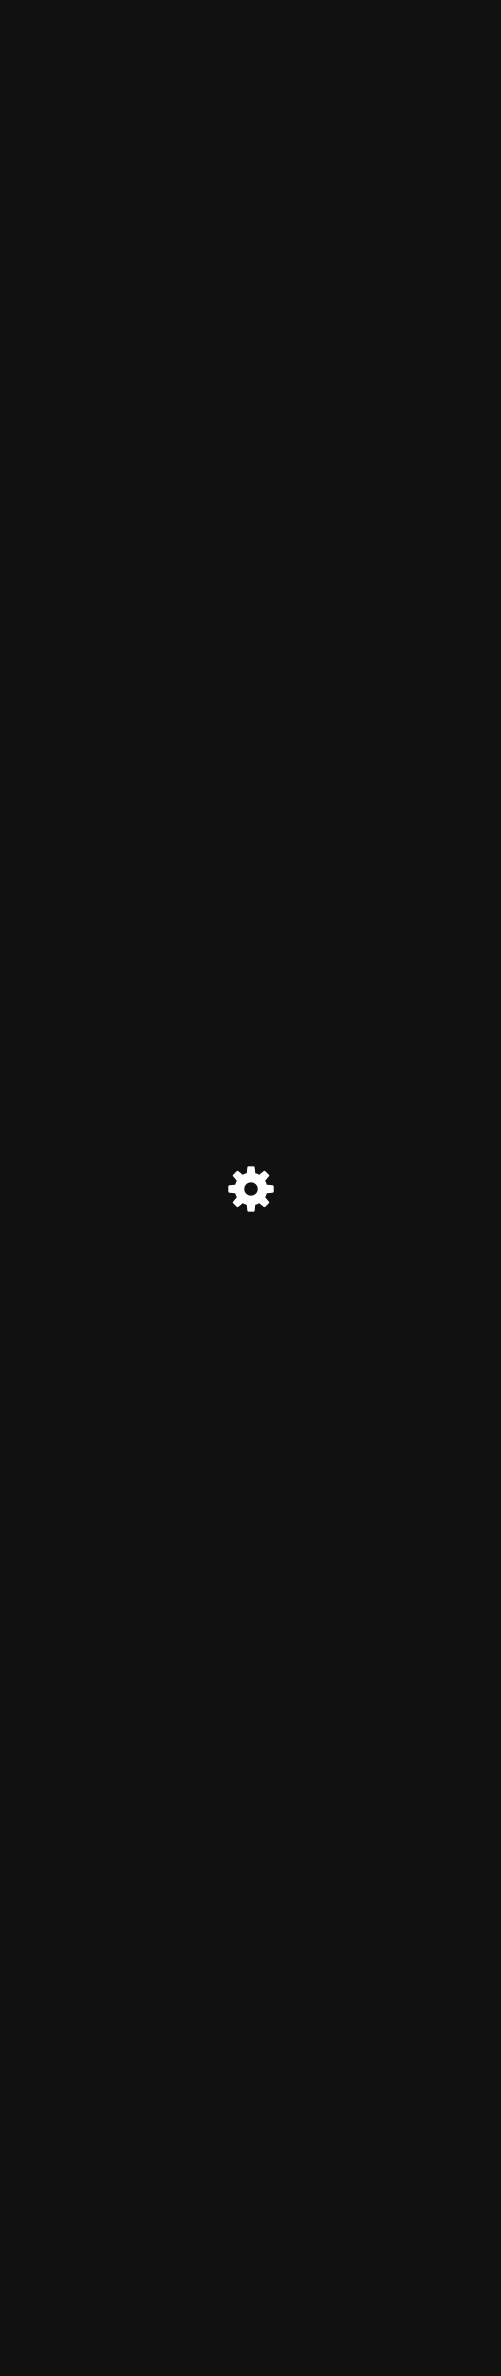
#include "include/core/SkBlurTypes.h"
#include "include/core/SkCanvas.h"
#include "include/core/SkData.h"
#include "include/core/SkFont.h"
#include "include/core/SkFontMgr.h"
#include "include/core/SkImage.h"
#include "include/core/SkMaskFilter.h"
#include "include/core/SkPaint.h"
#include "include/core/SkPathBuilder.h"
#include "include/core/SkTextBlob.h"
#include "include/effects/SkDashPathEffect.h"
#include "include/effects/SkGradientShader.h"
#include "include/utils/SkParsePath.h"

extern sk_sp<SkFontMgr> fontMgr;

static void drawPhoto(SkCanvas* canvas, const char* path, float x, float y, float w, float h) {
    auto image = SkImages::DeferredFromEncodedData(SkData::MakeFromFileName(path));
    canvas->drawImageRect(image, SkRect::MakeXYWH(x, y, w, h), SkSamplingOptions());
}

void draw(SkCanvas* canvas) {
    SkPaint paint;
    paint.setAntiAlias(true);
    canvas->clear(0xFF111111);
    drawPhoto(canvas, "assets/img1.png", 228, 1166, 46, 46);
}
